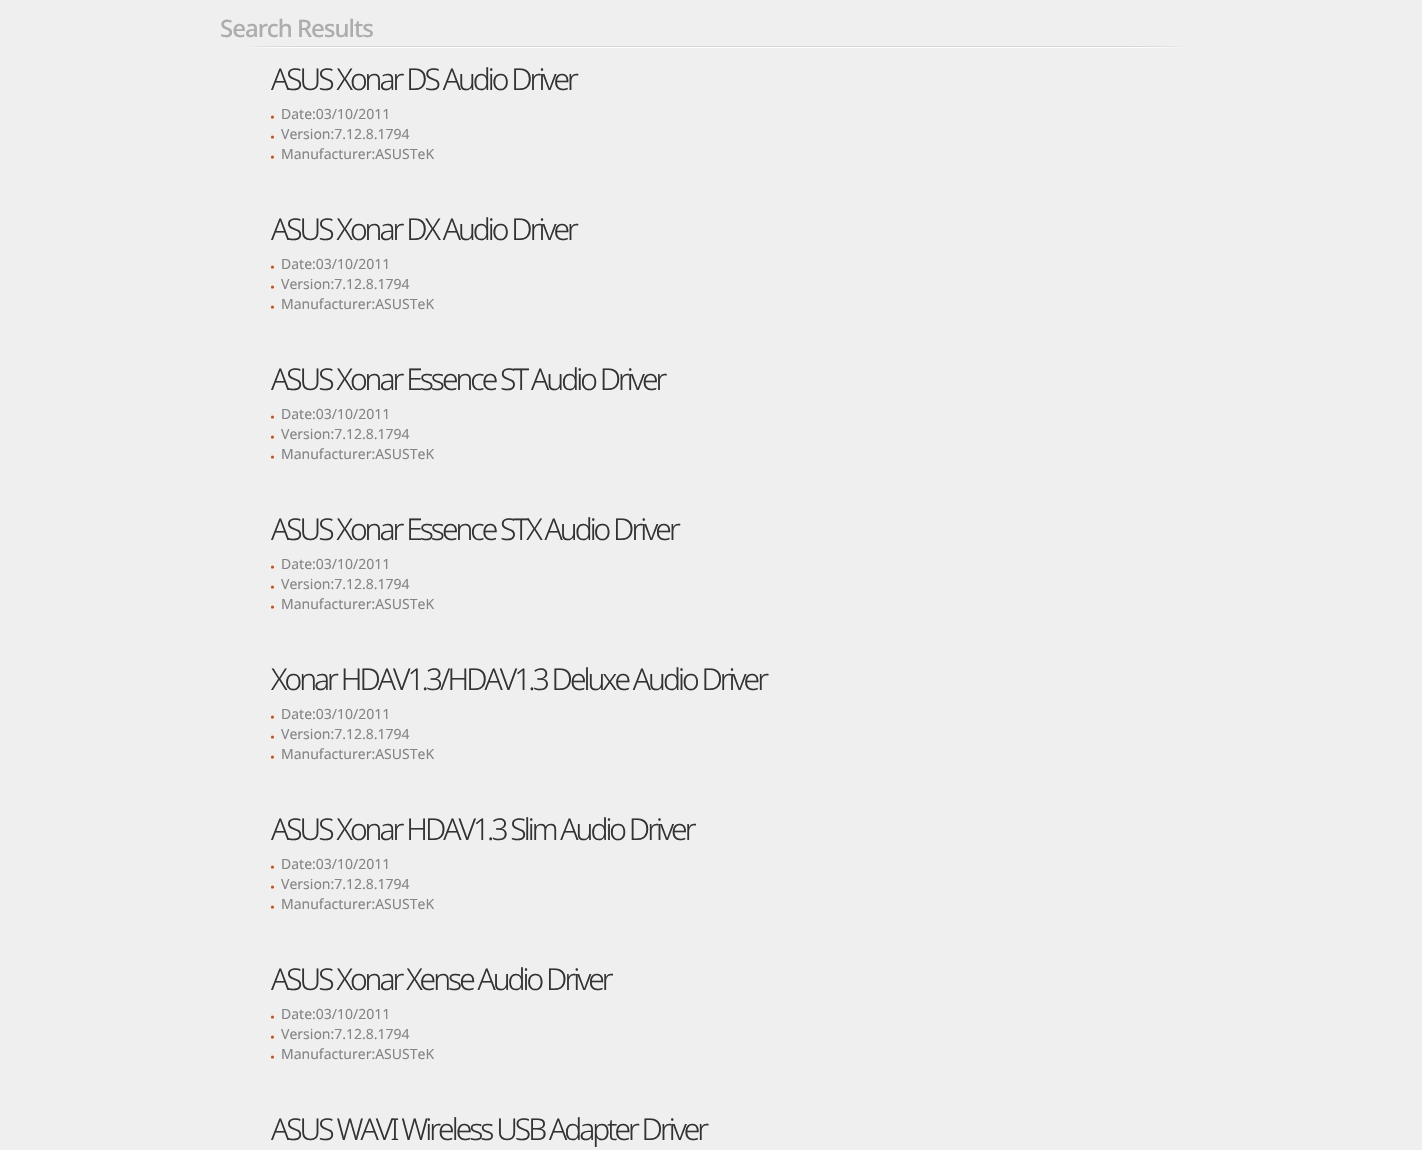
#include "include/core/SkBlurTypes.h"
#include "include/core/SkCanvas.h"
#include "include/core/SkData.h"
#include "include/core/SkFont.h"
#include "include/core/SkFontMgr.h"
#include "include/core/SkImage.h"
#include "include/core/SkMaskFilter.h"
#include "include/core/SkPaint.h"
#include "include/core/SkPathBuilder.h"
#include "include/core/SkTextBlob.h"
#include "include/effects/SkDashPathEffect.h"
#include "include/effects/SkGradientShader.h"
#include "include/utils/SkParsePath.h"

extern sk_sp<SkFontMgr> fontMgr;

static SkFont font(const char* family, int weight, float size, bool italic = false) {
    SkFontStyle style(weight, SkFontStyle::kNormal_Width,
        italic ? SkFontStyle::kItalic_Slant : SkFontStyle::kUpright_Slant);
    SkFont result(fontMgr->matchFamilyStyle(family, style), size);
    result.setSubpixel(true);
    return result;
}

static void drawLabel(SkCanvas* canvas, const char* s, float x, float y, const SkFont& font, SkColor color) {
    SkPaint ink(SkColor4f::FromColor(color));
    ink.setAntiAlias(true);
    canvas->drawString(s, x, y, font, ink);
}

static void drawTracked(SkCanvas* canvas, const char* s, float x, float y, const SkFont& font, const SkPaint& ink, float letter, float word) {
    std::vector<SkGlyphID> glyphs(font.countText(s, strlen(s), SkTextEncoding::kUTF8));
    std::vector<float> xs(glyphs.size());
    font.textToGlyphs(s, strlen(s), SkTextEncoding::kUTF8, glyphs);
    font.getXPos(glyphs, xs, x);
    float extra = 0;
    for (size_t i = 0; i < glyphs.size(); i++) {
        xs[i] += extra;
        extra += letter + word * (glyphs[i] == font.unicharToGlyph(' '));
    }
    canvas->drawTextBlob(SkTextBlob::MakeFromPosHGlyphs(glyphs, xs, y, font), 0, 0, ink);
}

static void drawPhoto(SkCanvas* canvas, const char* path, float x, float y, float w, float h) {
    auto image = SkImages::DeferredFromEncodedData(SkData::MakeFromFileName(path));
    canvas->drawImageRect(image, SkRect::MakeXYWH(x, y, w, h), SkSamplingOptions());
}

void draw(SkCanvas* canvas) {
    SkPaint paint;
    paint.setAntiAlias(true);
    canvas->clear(0xFFEFEFEF);
    drawPhoto(canvas, "assets/img1.png", 248, 46, 933, 2);
    SkFont font1 = font("Noto Sans", 500, 24);
    paint.setColor(0xFFADADAD);
    drawTracked(canvas, "Search Results", 220, 37, font1, paint, -1, 0);
    SkFont font2 = font("Noto Sans", 300, 30);
    paint.setColor(0xFF333333);
    drawTracked(canvas, "ASUS Xonar DS Audio Driver", 271, 90, font2, paint, -3, 0);
    drawPhoto(canvas, "assets/img2.png", 271, 115, 3, 4);
    SkFont font3 = font("Noto Sans", 400, 14);
    drawLabel(canvas, "Date:03/10/2011", 281, 119, font3, 0xFF858585);
    drawPhoto(canvas, "assets/img2.png", 271, 135, 3, 4);
    drawLabel(canvas, "Version:7.12.8.1794", 281, 139, font3, 0xFF858585);
    drawPhoto(canvas, "assets/img2.png", 271, 155, 3, 4);
    drawLabel(canvas, "Manufacturer:ASUSTeK", 281, 159, font3, 0xFF858585);
    drawTracked(canvas, "ASUS Xonar DX Audio Driver", 271, 240, font2, paint, -3, 0);
    drawPhoto(canvas, "assets/img2.png", 271, 265, 3, 4);
    drawLabel(canvas, "Date:03/10/2011", 281, 269, font3, 0xFF858585);
    drawPhoto(canvas, "assets/img2.png", 271, 285, 3, 4);
    drawLabel(canvas, "Version:7.12.8.1794", 281, 289, font3, 0xFF858585);
    drawPhoto(canvas, "assets/img2.png", 271, 305, 3, 4);
    drawLabel(canvas, "Manufacturer:ASUSTeK", 281, 309, font3, 0xFF858585);
    drawTracked(canvas, "ASUS Xonar Essence ST Audio Driver", 271, 390, font2, paint, -3, 0);
    drawPhoto(canvas, "assets/img2.png", 271, 415, 3, 4);
    drawLabel(canvas, "Date:03/10/2011", 281, 419, font3, 0xFF858585);
    drawPhoto(canvas, "assets/img2.png", 271, 435, 3, 4);
    drawLabel(canvas, "Version:7.12.8.1794", 281, 439, font3, 0xFF858585);
    drawPhoto(canvas, "assets/img2.png", 271, 455, 3, 4);
    drawLabel(canvas, "Manufacturer:ASUSTeK", 281, 459, font3, 0xFF858585);
    drawTracked(canvas, "ASUS Xonar Essence STX Audio Driver", 271, 540, font2, paint, -3, 0);
    drawPhoto(canvas, "assets/img2.png", 271, 565, 3, 4);
    drawLabel(canvas, "Date:03/10/2011", 281, 569, font3, 0xFF858585);
    drawPhoto(canvas, "assets/img2.png", 271, 585, 3, 4);
    drawLabel(canvas, "Version:7.12.8.1794", 281, 589, font3, 0xFF858585);
    drawPhoto(canvas, "assets/img2.png", 271, 605, 3, 4);
    drawLabel(canvas, "Manufacturer:ASUSTeK", 281, 609, font3, 0xFF858585);
    drawTracked(canvas, "Xonar HDAV1.3/HDAV1.3 Deluxe Audio Driver", 271, 690, font2, paint, -3, 0);
    drawPhoto(canvas, "assets/img2.png", 271, 715, 3, 4);
    drawLabel(canvas, "Date:03/10/2011", 281, 719, font3, 0xFF858585);
    drawPhoto(canvas, "assets/img2.png", 271, 735, 3, 4);
    drawLabel(canvas, "Version:7.12.8.1794", 281, 739, font3, 0xFF858585);
    drawPhoto(canvas, "assets/img2.png", 271, 755, 3, 4);
    drawLabel(canvas, "Manufacturer:ASUSTeK", 281, 759, font3, 0xFF858585);
    drawTracked(canvas, "ASUS Xonar HDAV1.3 Slim Audio Driver", 271, 840, font2, paint, -3, 0);
    drawPhoto(canvas, "assets/img2.png", 271, 865, 3, 4);
    drawLabel(canvas, "Date:03/10/2011", 281, 869, font3, 0xFF858585);
    drawPhoto(canvas, "assets/img2.png", 271, 885, 3, 4);
    drawLabel(canvas, "Version:7.12.8.1794", 281, 889, font3, 0xFF858585);
    drawPhoto(canvas, "assets/img2.png", 271, 905, 3, 4);
    drawLabel(canvas, "Manufacturer:ASUSTeK", 281, 909, font3, 0xFF858585);
    drawTracked(canvas, "ASUS Xonar Xense Audio Driver", 271, 990, font2, paint, -3, 0);
    drawPhoto(canvas, "assets/img2.png", 271, 1015, 3, 4);
    drawLabel(canvas, "Date:03/10/2011", 281, 1019, font3, 0xFF858585);
    drawPhoto(canvas, "assets/img2.png", 271, 1035, 3, 4);
    drawLabel(canvas, "Version:7.12.8.1794", 281, 1039, font3, 0xFF858585);
    drawPhoto(canvas, "assets/img2.png", 271, 1055, 3, 4);
    drawLabel(canvas, "Manufacturer:ASUSTeK", 281, 1059, font3, 0xFF858585);
    drawTracked(canvas, "ASUS WAVI Wireless USB Adapter Driver", 271, 1140, font2, paint, -3, 0);
}
